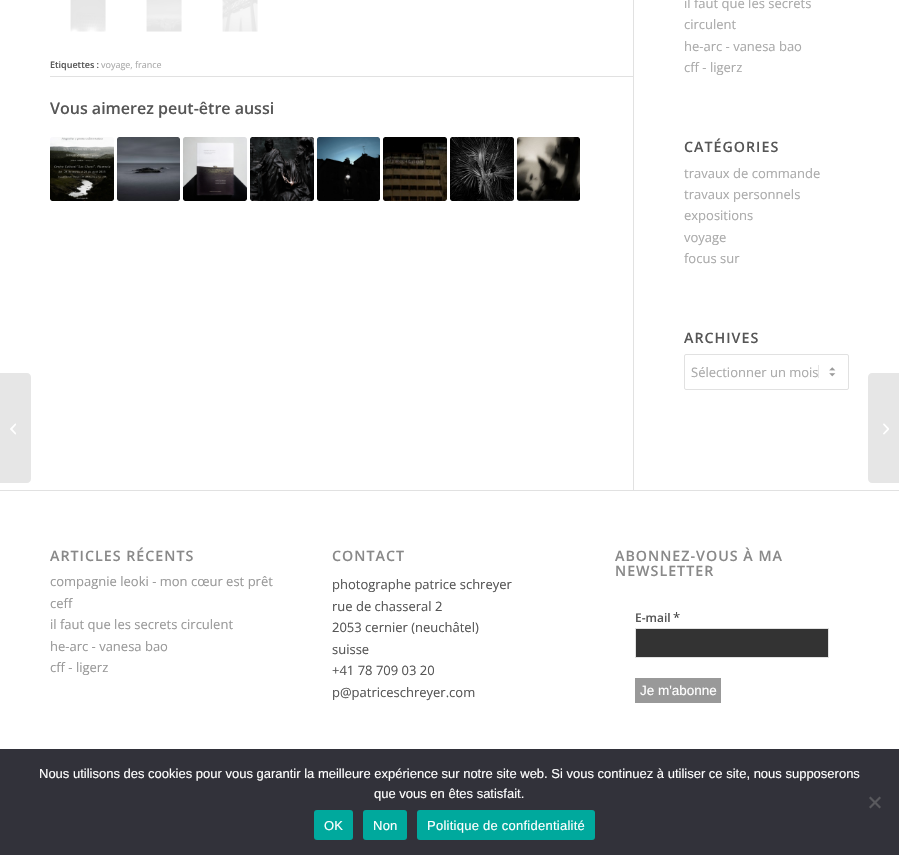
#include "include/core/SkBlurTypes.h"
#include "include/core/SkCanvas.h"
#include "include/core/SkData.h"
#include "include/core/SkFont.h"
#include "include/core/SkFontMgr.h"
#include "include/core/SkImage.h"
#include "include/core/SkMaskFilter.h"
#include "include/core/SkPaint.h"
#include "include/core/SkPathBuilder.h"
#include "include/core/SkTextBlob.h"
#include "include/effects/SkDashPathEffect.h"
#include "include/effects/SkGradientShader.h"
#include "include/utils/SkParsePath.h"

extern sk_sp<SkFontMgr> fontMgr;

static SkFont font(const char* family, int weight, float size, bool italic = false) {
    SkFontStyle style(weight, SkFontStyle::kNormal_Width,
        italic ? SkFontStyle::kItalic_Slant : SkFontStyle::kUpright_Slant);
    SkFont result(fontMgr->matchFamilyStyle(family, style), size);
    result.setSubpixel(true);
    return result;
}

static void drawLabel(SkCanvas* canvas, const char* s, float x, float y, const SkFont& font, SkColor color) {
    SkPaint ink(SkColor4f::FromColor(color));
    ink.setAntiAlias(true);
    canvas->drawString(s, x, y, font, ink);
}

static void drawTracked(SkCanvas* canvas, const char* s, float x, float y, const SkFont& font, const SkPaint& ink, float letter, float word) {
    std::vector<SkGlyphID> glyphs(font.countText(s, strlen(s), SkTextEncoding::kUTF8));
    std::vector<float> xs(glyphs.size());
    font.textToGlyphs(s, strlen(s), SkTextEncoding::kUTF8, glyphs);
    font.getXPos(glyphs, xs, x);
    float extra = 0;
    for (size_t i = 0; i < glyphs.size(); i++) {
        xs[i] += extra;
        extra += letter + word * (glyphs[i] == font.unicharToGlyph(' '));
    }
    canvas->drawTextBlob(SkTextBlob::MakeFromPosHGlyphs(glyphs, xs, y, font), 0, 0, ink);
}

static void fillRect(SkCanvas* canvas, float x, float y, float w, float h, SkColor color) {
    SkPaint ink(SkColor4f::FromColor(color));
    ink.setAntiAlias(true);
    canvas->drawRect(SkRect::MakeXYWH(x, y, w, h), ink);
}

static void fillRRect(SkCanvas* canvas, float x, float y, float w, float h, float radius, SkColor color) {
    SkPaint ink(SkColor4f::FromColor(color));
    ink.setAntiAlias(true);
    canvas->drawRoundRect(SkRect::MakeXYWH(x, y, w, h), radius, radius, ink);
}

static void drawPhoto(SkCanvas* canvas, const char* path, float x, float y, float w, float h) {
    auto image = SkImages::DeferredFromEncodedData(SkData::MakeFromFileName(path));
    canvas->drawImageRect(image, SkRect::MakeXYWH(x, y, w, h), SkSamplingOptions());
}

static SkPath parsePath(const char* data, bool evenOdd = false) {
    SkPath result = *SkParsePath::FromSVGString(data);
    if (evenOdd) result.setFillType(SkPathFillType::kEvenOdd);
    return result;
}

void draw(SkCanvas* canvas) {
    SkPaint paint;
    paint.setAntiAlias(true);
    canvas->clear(0xFFFFFFFF);
    paint.setColor(0xFFE6E6E6);
    canvas->drawPath(parsePath("M0 373H27C29 373 31 375 31 377V479C31 481 29 483 27 483H0Z"), paint);
    drawPhoto(canvas, "assets/img1.png", 10, 423, 6, 12);
    drawPhoto(canvas, "assets/img2.png", 70, 0, 36, 32);
    drawPhoto(canvas, "assets/img3.png", 146, 0, 36, 32);
    drawPhoto(canvas, "assets/img4.png", 222, 0, 36, 32);
    SkFont font1 = font("Open Sans", 600, 9);
    drawLabel(canvas, "Etiquettes :", 50, 68, font1, 0xFF565656);
    SkFont font2 = font("Open Sans", 400, 9);
    drawLabel(canvas, "voyage, france", 101, 68, font2, 0xFFAAAAAA);
    fillRect(canvas, 50, 76, 583, 1, 0xFFE1E1E1);
    SkFont font3 = font("Open Sans", 600, 16);
    drawLabel(canvas, "Vous aimerez peut-être aussi", 50, 114, font3, 0xFF565656);
    drawPhoto(canvas, "assets/img5.png", 50, 137, 64, 64);
    drawPhoto(canvas, "assets/img6.png", 117, 137, 63, 64);
    drawPhoto(canvas, "assets/img7.png", 183, 137, 64, 64);
    drawPhoto(canvas, "assets/img8.png", 250, 137, 64, 64);
    drawPhoto(canvas, "assets/img9.png", 317, 137, 63, 64);
    drawPhoto(canvas, "assets/img10.png", 383, 137, 64, 64);
    drawPhoto(canvas, "assets/img11.png", 450, 137, 64, 64);
    drawPhoto(canvas, "assets/img12.png", 517, 137, 63, 64);
    fillRect(canvas, 633, 0, 1, 490, 0xFFE1E1E1);
    SkFont font4 = font("Open Sans", 400, 13);
    drawLabel(canvas, "il faut que les secrets", 684, 8, font4, 0xFFAAAAAA);
    drawLabel(canvas, "circulent", 684, 29, font4, 0xFFAAAAAA);
    drawLabel(canvas, "he-arc - vanesa bao", 684, 51, font4, 0xFFAAAAAA);
    drawLabel(canvas, "cff - ligerz", 684, 72, font4, 0xFFAAAAAA);
    SkFont font5 = font("Open Sans", 600, 14.25f);
    paint.setColor(0xFF565656);
    drawTracked(canvas, "CATÉGORIES", 684, 152, font5, paint, 1, 0);
    drawLabel(canvas, "travaux de commande", 684, 178, font4, 0xFFAAAAAA);
    drawLabel(canvas, "travaux personnels", 684, 199, font4, 0xFFAAAAAA);
    drawLabel(canvas, "expositions", 684, 220, font4, 0xFFAAAAAA);
    drawLabel(canvas, "voyage", 684, 242, font4, 0xFFAAAAAA);
    drawLabel(canvas, "focus sur", 684, 263, font4, 0xFFAAAAAA);
    drawTracked(canvas, "ARCHIVES", 684, 343, font5, paint, 1, 0);
    drawPhoto(canvas, "assets/img13.png", 818, 365, 18, 13);
    paint.setStroke(true);
    paint.setStrokeWidth(1);
    paint.setColor(0xFFE1E1E1);
    canvas->drawRoundRect(SkRect::MakeXYWH(684.5f, 354.5f, 164, 35), 1.5f, 1.5f, paint);
    drawLabel(canvas, "Sélectionner un mois", 691, 377, font4, 0xFFAAAAAA);
    fillRect(canvas, 0, 490, 899, 1, 0xFFE1E1E1);
    paint.setStroke(false);
    paint.setColor(0xFF898989);
    drawTracked(canvas, "ARTICLES RÉCENTS", 50, 561, font5, paint, 1, 0);
    drawLabel(canvas, "compagnie leoki - mon cœur est prêt", 50, 586, font4, 0xFF999999);
    drawLabel(canvas, "ceff", 50, 608, font4, 0xFF999999);
    drawLabel(canvas, "il faut que les secrets circulent", 50, 629, font4, 0xFF999999);
    drawLabel(canvas, "he-arc - vanesa bao", 50, 651, font4, 0xFF999999);
    drawLabel(canvas, "cff - ligerz", 50, 672, font4, 0xFF999999);
    drawTracked(canvas, "CONTACT", 332, 561, font5, paint, 1, 0);
    drawLabel(canvas, "photographe patrice schreyer", 332, 589, font4, 0xFF565656);
    drawLabel(canvas, "rue de chasseral 2", 332, 611, font4, 0xFF565656);
    drawLabel(canvas, "2053 cernier (neuchâtel)", 332, 632, font4, 0xFF565656);
    drawLabel(canvas, "suisse", 332, 654, font4, 0xFF565656);
    drawLabel(canvas, "+41 78 709 03 20", 332, 675, font4, 0xFF565656);
    drawLabel(canvas, "p@patriceschreyer.com", 332, 697, font4, 0xFF565656);
    drawTracked(canvas, "ABONNEZ-VOUS À MA", 615, 561, font5, paint, 1, 0);
    drawTracked(canvas, "NEWSLETTER", 615, 576, font5, paint, 1, 0);
    SkFont font6 = font("Open Sans", 600, 12);
    drawLabel(canvas, "E-mail", 635, 622, font6, 0xFF565656);
    drawLabel(canvas, "*", 673, 622, font4, 0xFF444444);
    paint.setColor(0xFF333333);
    canvas->drawRect(SkRect::MakeXYWH(635.5f, 628.5f, 193, 29), paint);
    paint.setStroke(true);
    paint.setColor(0xFFE1E1E1);
    canvas->drawRect(SkRect::MakeXYWH(635.5f, 628.5f, 193, 29), paint);
    fillRect(canvas, 635, 678, 86, 25, 0xFF999999);
    SkFont font7 = font("Liberation Sans", 400, 13.5f);
    drawLabel(canvas, "Je m'abonne", 640, 695, font7, 0xFFFFFFFF);
    paint.setStroke(false);
    paint.setColor(0xFFE6E6E6);
    canvas->drawPath(parsePath("M872 373H899V483H872C870 483 868 481 868 479V377C868 375 870 373 872 373Z"), paint);
    drawPhoto(canvas, "assets/img14.png", 883, 423, 6, 12);
    fillRect(canvas, 0, 749, 899, 106, 0xFF32323A);
    SkFont font8 = font("Liberation Sans", 400, 13);
    drawLabel(canvas, "Nous utilisons des cookies pour vous garantir la meilleure expérience sur notre site web. Si vous continuez à utiliser ce site, nous supposerons", 39, 778, font8, 0xFFFFFFFF);
    drawLabel(canvas, "que vous en êtes satisfait.", 374, 798, font8, 0xFFFFFFFF);
    paint.setColor(0xFF59595D);
    canvas->drawPath(parsePath("M879.5 796.5L881 798L870.5 808.5L869 807Z"), paint);
    canvas->drawPath(parsePath("M869 798L870.5 796.5L881 807L879.5 808.5Z"), paint);
    fillRRect(canvas, 314, 810, 39, 30, 3, 0xFF00A99D);
    paint.setColor(0xFFFFFFFF);
    drawTracked(canvas, "OK", 324, 830, font8, paint, 0.25f, 0);
    fillRRect(canvas, 363, 810, 44, 30, 3, 0xFF00A99D);
    drawTracked(canvas, "Non", 373, 830, font8, paint, 0.25f, 0);
    fillRRect(canvas, 417, 810, 178, 30, 3, 0xFF00A99D);
    drawTracked(canvas, "Politique de confidentialité", 427, 830, font8, paint, 0.25f, 0);
}
